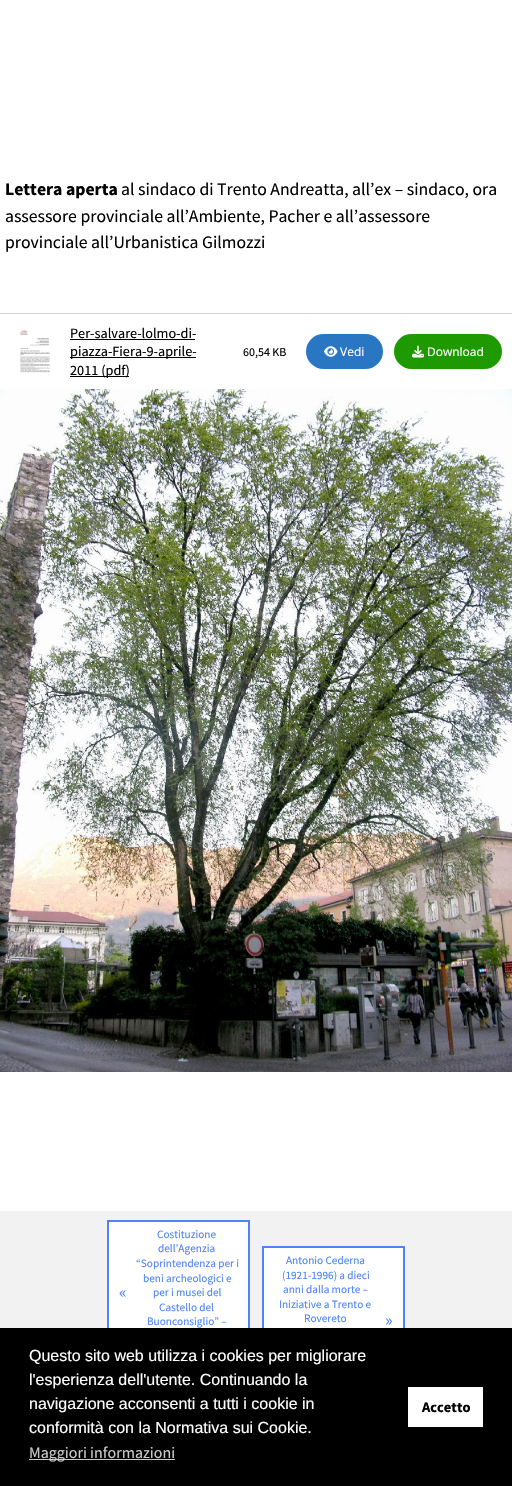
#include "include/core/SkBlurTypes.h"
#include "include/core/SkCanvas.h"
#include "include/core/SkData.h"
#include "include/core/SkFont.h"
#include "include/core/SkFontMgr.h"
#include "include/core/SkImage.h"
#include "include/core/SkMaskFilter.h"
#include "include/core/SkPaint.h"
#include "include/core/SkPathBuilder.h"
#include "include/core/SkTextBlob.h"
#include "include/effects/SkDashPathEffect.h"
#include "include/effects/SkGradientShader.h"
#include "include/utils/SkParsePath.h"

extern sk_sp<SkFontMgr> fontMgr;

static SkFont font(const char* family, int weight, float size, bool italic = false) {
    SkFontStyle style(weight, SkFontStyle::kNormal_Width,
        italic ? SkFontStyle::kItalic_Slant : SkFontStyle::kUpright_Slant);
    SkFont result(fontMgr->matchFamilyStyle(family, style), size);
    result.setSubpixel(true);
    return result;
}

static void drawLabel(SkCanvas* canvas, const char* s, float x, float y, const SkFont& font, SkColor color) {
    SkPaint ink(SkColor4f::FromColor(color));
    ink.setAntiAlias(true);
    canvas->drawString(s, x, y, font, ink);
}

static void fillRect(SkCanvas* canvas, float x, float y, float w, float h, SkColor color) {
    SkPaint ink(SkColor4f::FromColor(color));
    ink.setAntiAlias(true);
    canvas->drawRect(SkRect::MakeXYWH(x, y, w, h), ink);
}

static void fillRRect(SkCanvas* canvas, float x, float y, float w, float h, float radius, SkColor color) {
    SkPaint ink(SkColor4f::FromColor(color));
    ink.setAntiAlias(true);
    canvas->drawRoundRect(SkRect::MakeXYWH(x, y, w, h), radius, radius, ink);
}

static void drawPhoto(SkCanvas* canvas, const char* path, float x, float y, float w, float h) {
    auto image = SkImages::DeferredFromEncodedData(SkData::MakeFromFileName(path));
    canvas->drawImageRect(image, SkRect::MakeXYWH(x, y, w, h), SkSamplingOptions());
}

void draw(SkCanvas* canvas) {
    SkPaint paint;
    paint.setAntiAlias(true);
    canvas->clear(0xFFFFFFFF);
    SkFont font1 = font("Source Sans Pro", 700, 17.7f);
    drawLabel(canvas, "Lettera aperta", 5, 195, font1, 0xFF000000);
    SkFont font2 = font("Source Sans Pro", 400, 17.7f);
    drawLabel(canvas, "al sindaco di Trento Andreatta, all’ex – sindaco, ora", 121, 195, font2, 0xFF000000);
    drawLabel(canvas, "assessore provinciale all’Ambiente, Pacher e all’assessore", 5, 222, font2, 0xFF000000);
    drawLabel(canvas, "provinciale all’Urbanistica Gilmozzi", 5, 248, font2, 0xFF000000);
    canvas->save();
    canvas->clipRect(SkRect::MakeXYWH(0, 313, 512, 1));
    paint.setColor(0xFF000000);
    paint.setMaskFilter(SkMaskFilter::MakeBlur(kNormal_SkBlurStyle, 0.5f));
    canvas->drawRect(SkRect::MakeXYWH(0, 314, 512, 75), paint);
    paint.setMaskFilter(nullptr);
    canvas->restore();
    drawPhoto(canvas, "assets/img1.png", 20, 329, 30, 44);
    SkFont font3 = font("Source Sans Pro", 400, 14.25f);
    drawLabel(canvas, "Per-salvare-lolmo-di-", 70, 338, font3, 0xFF000000);
    fillRect(canvas, 70, 339, 125, 1, 0xFF000000);
    fillRect(canvas, 70, 357, 126, 1, 0xFF000000);
    drawLabel(canvas, "piazza-Fiera-9-aprile-", 70, 356, font3, 0xFF000000);
    fillRect(canvas, 70, 376, 59, 1, 0xFF000000);
    drawLabel(canvas, "2011 (pdf)", 70, 375, font3, 0xFF000000);
    SkFont font4 = font("Source Sans Pro", 400, 12);
    drawLabel(canvas, "60,54 KB", 243, 356, font4, 0xFF000000);
    fillRRect(canvas, 306, 334, 77, 35, 17.5f, 0xFF2976C3);
    drawPhoto(canvas, "assets/img2.png", 324, 346, 14, 11);
    SkFont font5 = font("Open Sans", 400, 12);
    drawLabel(canvas, "Vedi", 340, 356, font5, 0xFFFFFFFF);
    fillRRect(canvas, 394, 334, 108, 35, 17.5f, 0xFF1F9900);
    drawPhoto(canvas, "assets/img3.png", 412, 345, 12, 13);
    drawLabel(canvas, "Download", 427, 356, font5, 0xFFFFFFFF);
    drawPhoto(canvas, "assets/img4.png", 0, 389, 512, 683);
    fillRect(canvas, 0, 1211, 512, 117, 0xFFF2F2F2);
    fillRect(canvas, 109, 1222, 139, 106, 0xFFFFFFFF);
    paint.setStroke(true);
    paint.setStrokeWidth(2);
    paint.setColor(0xFF4D84FD);
    canvas->drawRect(SkRect::MakeXYWH(108, 1221, 141, 143), paint);
    drawLabel(canvas, "«", 119, 1298, font2, 0xFF4D84FD);
    SkFont font6 = font("Source Sans Pro", 400, 11.25f);
    drawLabel(canvas, "Costituzione", 157, 1238, font6, 0xFF4D84FD);
    drawLabel(canvas, "dell’Agenzia", 158, 1252, font6, 0xFF4D84FD);
    drawLabel(canvas, "“Soprintendenza per i", 136, 1267, font6, 0xFF4D84FD);
    drawLabel(canvas, "beni archeologici e", 143, 1282, font6, 0xFF4D84FD);
    drawLabel(canvas, "per i musei del", 153, 1296, font6, 0xFF4D84FD);
    drawLabel(canvas, "Castello del", 159, 1311, font6, 0xFF4D84FD);
    drawLabel(canvas, "Buonconsiglio” –", 147, 1325, font6, 0xFF4D84FD);
    fillRect(canvas, 264, 1248, 139, 80, 0xFFFFFFFF);
    canvas->drawRect(SkRect::MakeXYWH(263, 1247, 141, 91), paint);
    drawLabel(canvas, "Antonio Cederna", 286, 1264, font6, 0xFF4D84FD);
    drawLabel(canvas, "(1921-1996) a dieci", 282, 1279, font6, 0xFF4D84FD);
    drawLabel(canvas, "anni dalla morte –", 283, 1293, font6, 0xFF4D84FD);
    drawLabel(canvas, "Iniziative a Trento e", 279, 1308, font6, 0xFF4D84FD);
    drawLabel(canvas, "Rovereto", 304, 1322, font6, 0xFF4D84FD);
    drawLabel(canvas, "»", 385, 1326, font2, 0xFF4D84FD);
    fillRect(canvas, 0, 1328, 512, 158, 0xFF000000);
    SkFont font7 = font("Liberation Sans", 400, 16);
    drawLabel(canvas, "Questo sito web utilizza i cookies per migliorare", 29, 1361, font7, 0xFFFFFFFF);
    drawLabel(canvas, "l'esperienza dell'utente. Continuando la", 29, 1385, font7, 0xFFFFFFFF);
    drawLabel(canvas, "navigazione acconsenti a tutti i cookie in", 29, 1409, font7, 0xFFFFFFFF);
    drawLabel(canvas, "conformità con la Normativa sui Cookie.", 29, 1433, font7, 0xFFFFFFFF);
    fillRect(canvas, 29, 1459, 146, 1, 0xFFCCCCCC);
    SkFont font8 = font("Source Sans Pro", 400, 16);
    drawLabel(canvas, "Maggiori informazioni", 29, 1458, font8, 0xFFCCCCCC);
    fillRect(canvas, 408, 1387, 75, 40, 0xFFFFFFFF);
    SkFont font9 = font("Source Sans Pro", 700, 14.5f);
    drawLabel(canvas, "Accetto", 422, 1412, font9, 0xFF000000);
}
